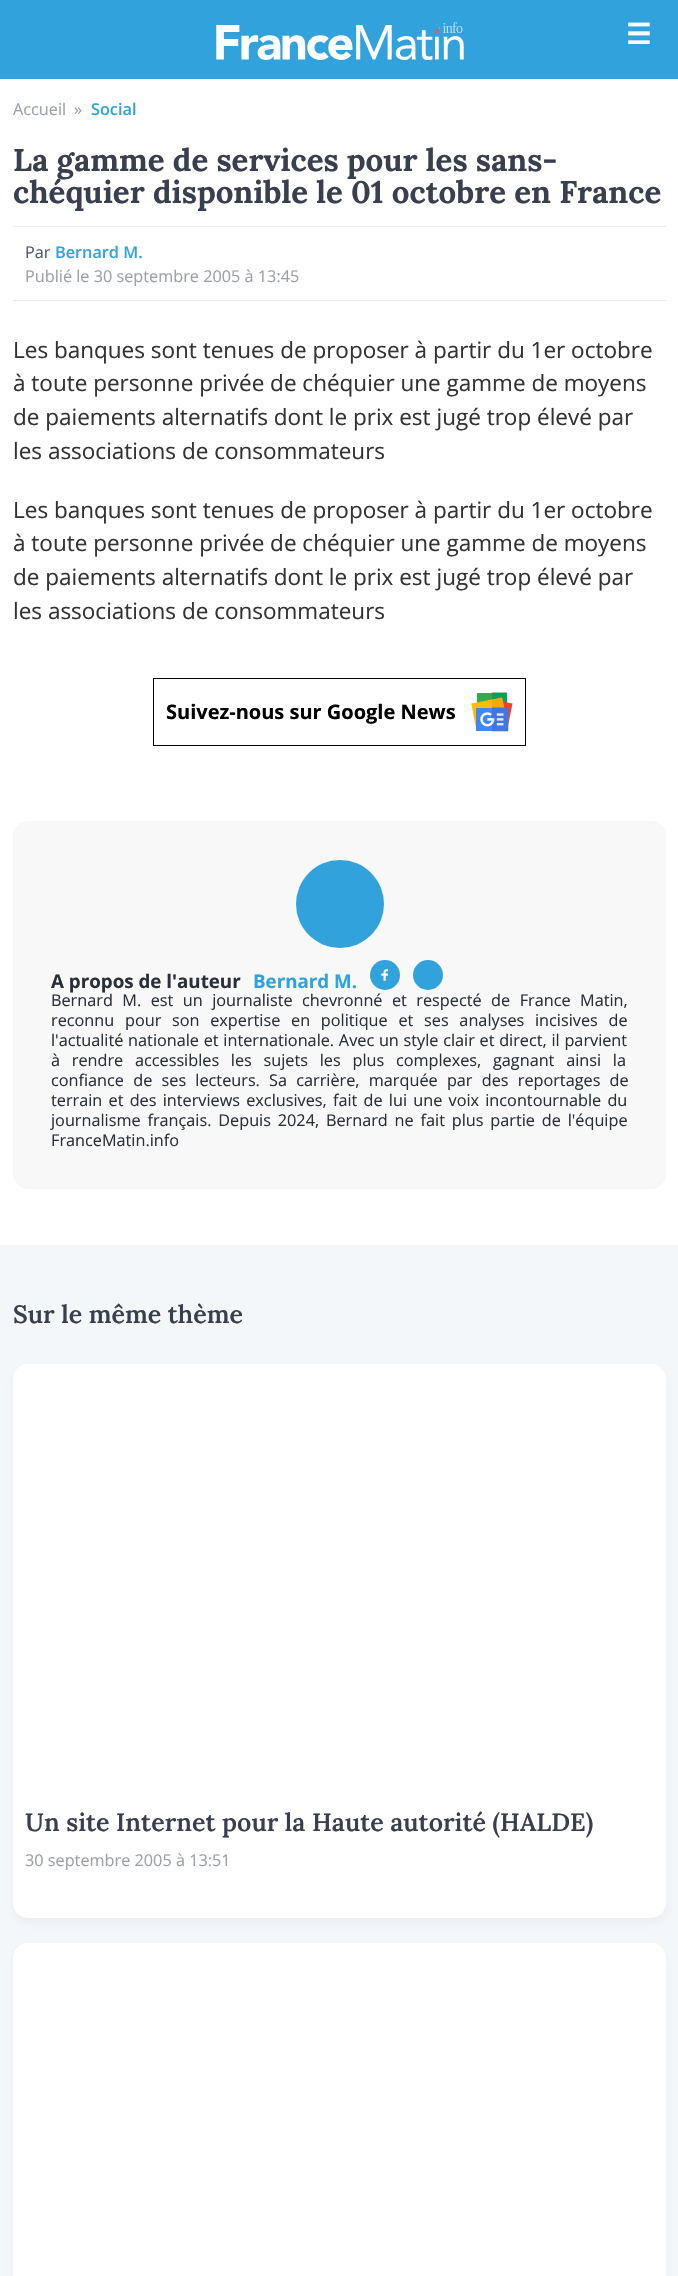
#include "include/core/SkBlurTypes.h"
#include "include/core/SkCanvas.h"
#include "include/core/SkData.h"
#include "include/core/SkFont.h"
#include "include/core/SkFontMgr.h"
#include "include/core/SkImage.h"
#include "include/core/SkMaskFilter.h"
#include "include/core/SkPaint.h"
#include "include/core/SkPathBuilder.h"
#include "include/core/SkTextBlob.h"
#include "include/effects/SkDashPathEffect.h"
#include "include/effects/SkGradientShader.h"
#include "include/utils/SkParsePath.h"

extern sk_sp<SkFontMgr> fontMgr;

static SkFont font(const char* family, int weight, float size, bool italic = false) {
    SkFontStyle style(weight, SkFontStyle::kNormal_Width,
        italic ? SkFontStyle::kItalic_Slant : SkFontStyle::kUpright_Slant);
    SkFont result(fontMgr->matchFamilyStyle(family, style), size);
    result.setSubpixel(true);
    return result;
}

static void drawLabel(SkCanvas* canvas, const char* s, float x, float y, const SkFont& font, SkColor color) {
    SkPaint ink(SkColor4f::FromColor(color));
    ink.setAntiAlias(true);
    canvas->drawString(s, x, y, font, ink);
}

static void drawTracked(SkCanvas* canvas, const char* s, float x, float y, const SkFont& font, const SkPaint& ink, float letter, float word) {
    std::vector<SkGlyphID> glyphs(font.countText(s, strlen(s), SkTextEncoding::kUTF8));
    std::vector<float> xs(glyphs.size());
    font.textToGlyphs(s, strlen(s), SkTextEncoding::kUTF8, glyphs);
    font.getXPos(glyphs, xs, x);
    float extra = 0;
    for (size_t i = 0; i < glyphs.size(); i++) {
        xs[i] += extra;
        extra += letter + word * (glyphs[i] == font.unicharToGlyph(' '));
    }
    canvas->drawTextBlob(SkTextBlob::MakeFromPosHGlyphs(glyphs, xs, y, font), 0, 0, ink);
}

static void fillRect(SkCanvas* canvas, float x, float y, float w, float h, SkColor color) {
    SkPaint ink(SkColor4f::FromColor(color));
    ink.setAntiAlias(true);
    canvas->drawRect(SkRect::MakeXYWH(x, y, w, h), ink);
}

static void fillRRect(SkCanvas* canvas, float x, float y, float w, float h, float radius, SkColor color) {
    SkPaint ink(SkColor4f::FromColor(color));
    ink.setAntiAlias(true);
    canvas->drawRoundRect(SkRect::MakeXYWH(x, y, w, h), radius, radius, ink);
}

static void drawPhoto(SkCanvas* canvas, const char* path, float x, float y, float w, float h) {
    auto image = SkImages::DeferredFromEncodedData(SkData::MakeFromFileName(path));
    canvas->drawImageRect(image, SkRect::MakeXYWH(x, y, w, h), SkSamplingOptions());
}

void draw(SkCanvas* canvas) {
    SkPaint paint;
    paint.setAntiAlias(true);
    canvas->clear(0xFFF4F7FA);
    fillRect(canvas, 0, 0, 678, 79, 0xFF32A2DC);
    drawPhoto(canvas, "assets/img1.png", 216, 22, 248, 38);
    SkFont font1 = font("DejaVu Sans", 700, 28);
    drawLabel(canvas, "☰", 626, 44, font1, 0xFFFFFFFF);
    fillRect(canvas, 0, 79, 678, 1166, 0xFFFFFFFF);
    SkFont font2 = font("Open Sans", 400, 16.25f);
    drawLabel(canvas, "Accueil", 13, 115, font2, 0xFF9CA0AC);
    drawLabel(canvas, "»", 74, 115, font2, 0xFF9CA0AC);
    SkFont font3 = font("Open Sans", 600, 16.25f);
    drawLabel(canvas, "Social", 91, 115, font3, 0xFF32A2DC);
    SkFont font4 = font("Lora", 700, 31.25f);
    drawLabel(canvas, "La gamme de services pour les sans-", 13, 171, font4, 0xFF383F4E);
    drawLabel(canvas, "chéquier disponible le 01 octobre en France", 13, 203, font4, 0xFF383F4E);
    fillRect(canvas, 13, 226, 653, 1, 0xFFE8EDF0);
    fillRect(canvas, 13, 300, 653, 1, 0xFFE8EDF0);
    drawLabel(canvas, "Par", 25, 258, font2, 0xFF53596C);
    drawLabel(canvas, "Bernard M.", 55, 258, font3, 0xFF32A2DC);
    drawLabel(canvas, "Publié le 30 septembre 2005 à 13:45", 25, 282, font2, 0xFF9CA0AC);
    SkFont font5 = font("Open Sans", 400, 22.5f);
    drawLabel(canvas, "Les banques sont tenues de proposer à partir du 1er octobre", 13, 358, font5, 0xFF333333);
    drawLabel(canvas, "à toute personne privée de chéquier une gamme de moyens", 13, 391, font5, 0xFF333333);
    drawLabel(canvas, "de paiements alternatifs dont le prix est jugé trop élevé par", 13, 425, font5, 0xFF333333);
    drawLabel(canvas, "les associations de consommateurs", 13, 459, font5, 0xFF333333);
    drawLabel(canvas, "Les banques sont tenues de proposer à partir du 1er octobre", 13, 518, font5, 0xFF333333);
    drawLabel(canvas, "à toute personne privée de chéquier une gamme de moyens", 13, 551, font5, 0xFF333333);
    drawLabel(canvas, "de paiements alternatifs dont le prix est jugé trop élevé par", 13, 585, font5, 0xFF333333);
    drawLabel(canvas, "les associations de consommateurs", 13, 619, font5, 0xFF333333);
    paint.setStroke(true);
    paint.setStrokeWidth(1);
    paint.setColor(0xFF000000);
    canvas->drawRect(SkRect::MakeXYWH(153.5f, 678.5f, 372, 67), paint);
    SkFont font6 = font("Open Sans", 700, 20);
    drawLabel(canvas, "Suivez-nous sur Google News", 166, 719, font6, 0xFF000000);
    drawPhoto(canvas, "assets/img2.png", 471, 692, 42, 40);
    paint.setStroke(false);
    paint.setColor(0xFFF8F8F8);
    canvas->drawRoundRect(SkRect::MakeXYWH(13.5f, 821.5f, 652, 367), 14.5f, 14.5f, paint);
    paint.setStroke(true);
    paint.setColor(0xFFF5F7FB);
    canvas->drawRoundRect(SkRect::MakeXYWH(13.5f, 821.5f, 652, 367), 14.5f, 14.5f, paint);
    paint.setStroke(false);
    paint.setColor(0xFF32A2DC);
    canvas->drawCircle(340, 904, 44, paint);
    SkFont font7 = font("Open Sans", 700, 18.75f);
    drawLabel(canvas, "A propos de l'auteur", 51, 988, font7, 0xFF2A303B);
    drawLabel(canvas, "Bernard M.", 253, 988, font7, 0xFF32A2DC);
    canvas->drawCircle(385, 975, 15, paint);
    drawPhoto(canvas, "assets/img3.png", 381, 969, 7, 12);
    canvas->drawCircle(428, 975, 15, paint);
    paint.setColor(0xFF2A303B);
    drawTracked(canvas, "Bernard M. est un journaliste chevronné et respecté de France Matin,", 51, 1006, font2, paint, 0, 5.25f);
    drawTracked(canvas, "reconnu pour son expertise en politique et ses analyses incisives de", 51, 1026, font2, paint, 0, 6.5f);
    drawTracked(canvas, "l'actualité nationale et internationale. Avec un style clair et direct, il parvient", 51, 1046, font2, paint, 0, 0.5f);
    drawTracked(canvas, "à rendre accessibles les sujets les plus complexes, gagnant ainsi la", 51, 1066, font2, paint, 0, 7.5f);
    drawTracked(canvas, "confiance de ses lecteurs. Sa carrière, marquée par des reportages de", 51, 1086, font2, paint, 0, 5);
    drawTracked(canvas, "terrain et des interviews exclusives, fait de lui une voix incontournable du", 51, 1106, font2, paint, 0, 2);
    drawTracked(canvas, "journalisme français. Depuis 2024, Bernard ne fait plus partie de l'équipe", 51, 1126, font2, paint, 0, 2.6f);
    drawLabel(canvas, "FranceMatin.info", 51, 1146, font2, 0xFF2A303B);
    SkFont font8 = font("Lora", 600, 25);
    drawLabel(canvas, "Sur le même thème", 13, 1323, font8, 0xFF383F4E);
    paint.setColor(0x0F334D72);
    paint.setMaskFilter(SkMaskFilter::MakeBlur(kNormal_SkBlurStyle, 5));
    canvas->drawRoundRect(SkRect::MakeXYWH(13, 1369, 653, 554), 15, 15, paint);
    paint.setMaskFilter(nullptr);
    fillRRect(canvas, 13, 1364, 653, 554, 15, 0xFFFFFFFF);
    drawLabel(canvas, "Un site Internet pour la Haute autorité (HALDE)", 25, 1831, font8, 0xFF383F4E);
    drawLabel(canvas, "30 septembre 2005 à 13:51", 25, 1866, font2, 0xFF9CA0AC);
    paint.setMaskFilter(SkMaskFilter::MakeBlur(kNormal_SkBlurStyle, 5));
    canvas->drawRoundRect(SkRect::MakeXYWH(13, 1948, 653, 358), 15, 15, paint);
    paint.setMaskFilter(nullptr);
    fillRRect(canvas, 13, 1943, 653, 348, 15, 0xFFFFFFFF);
}
